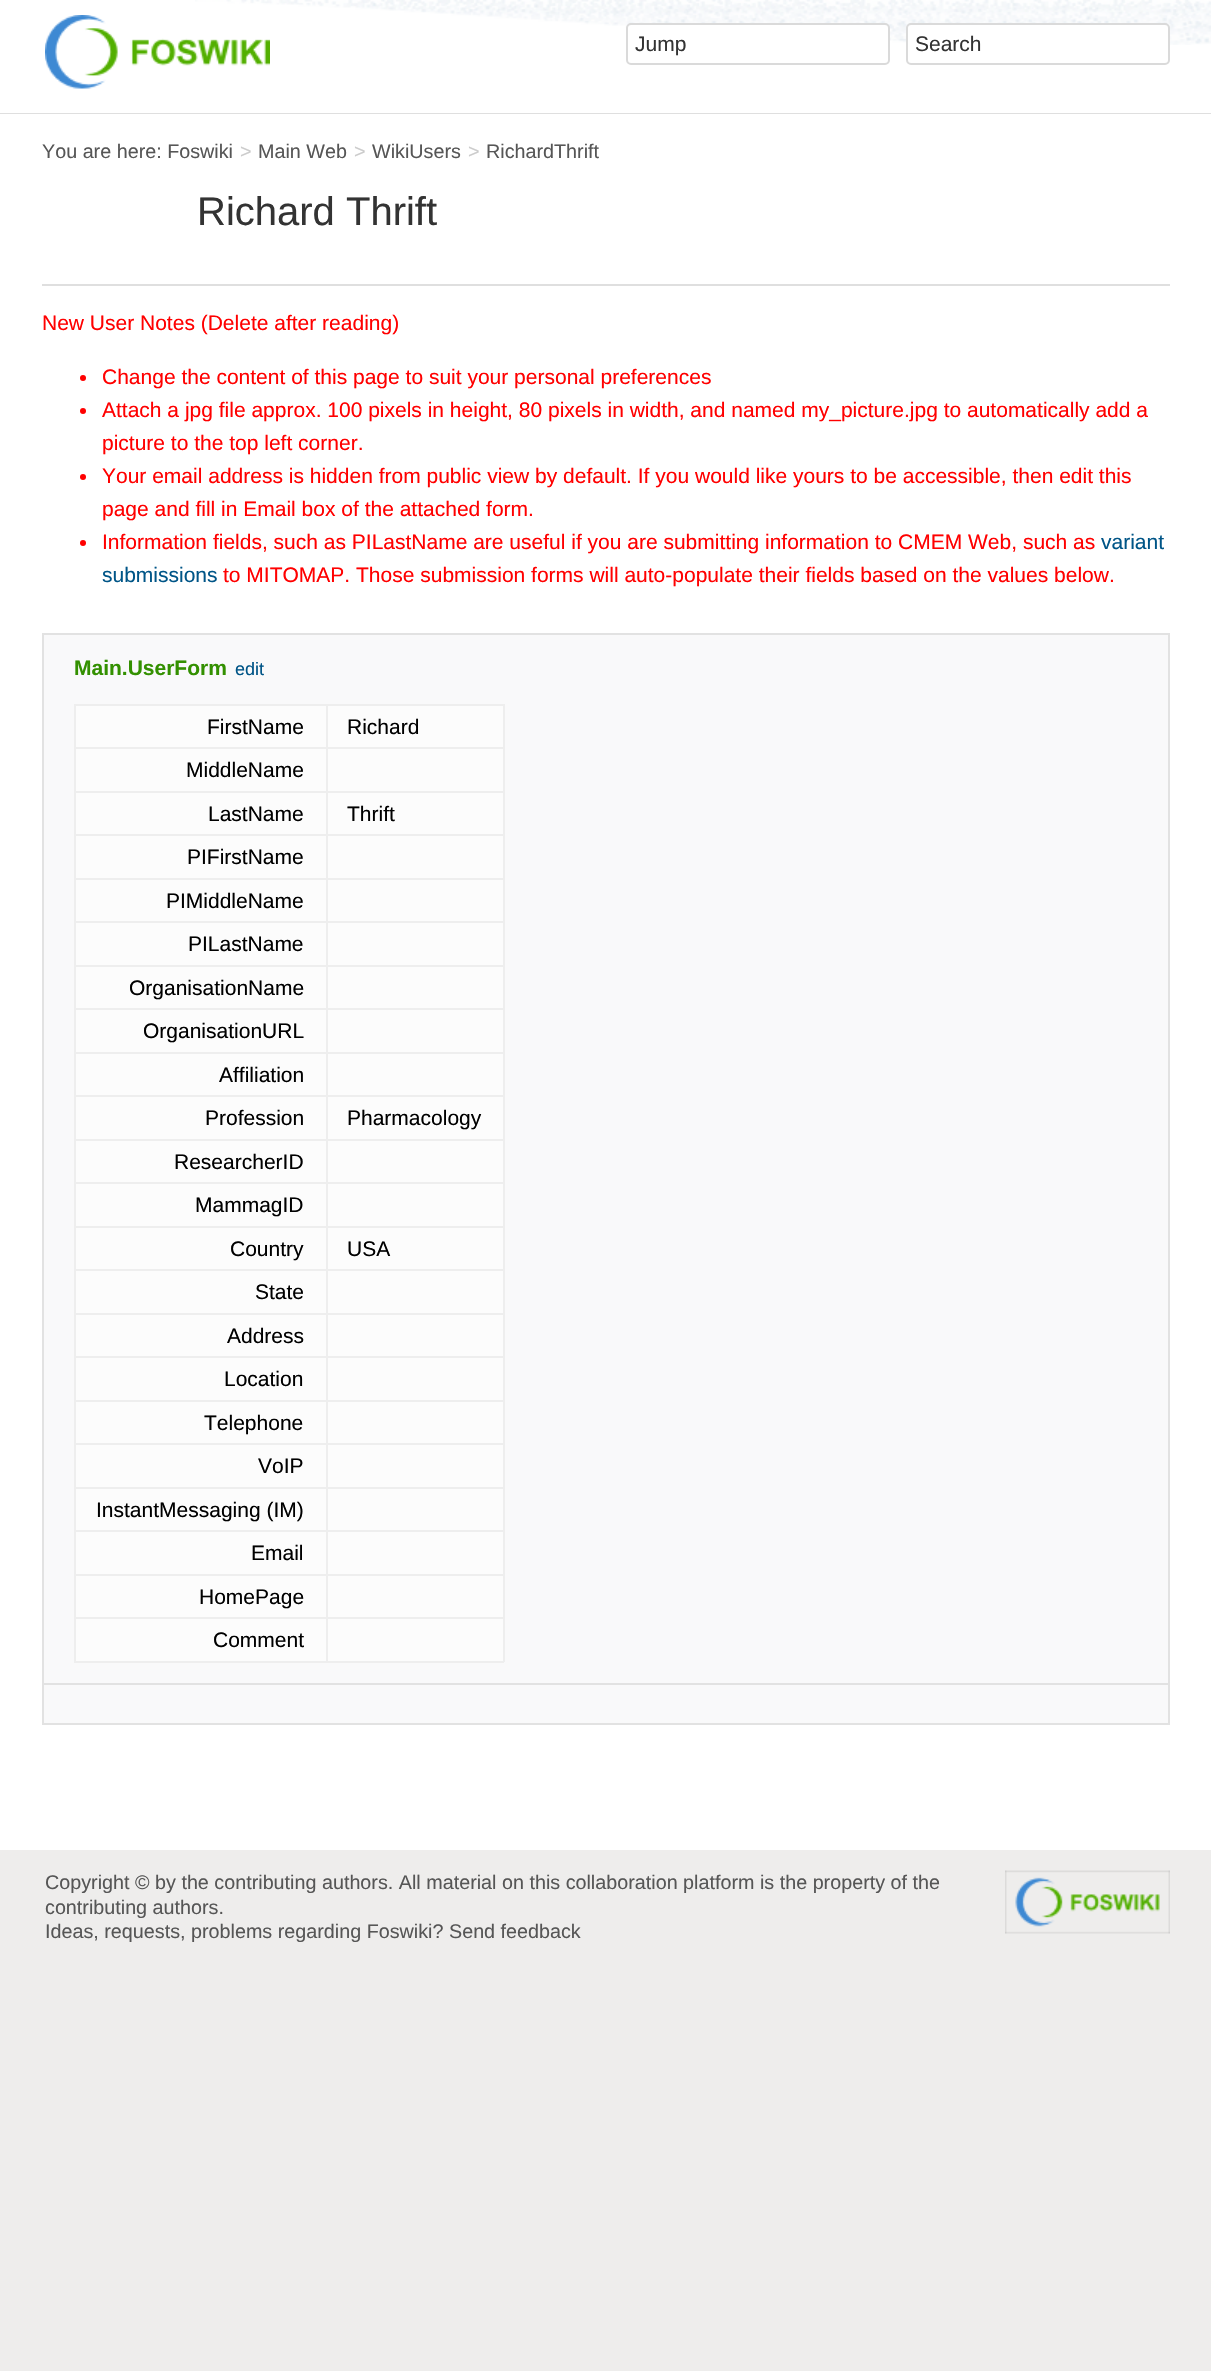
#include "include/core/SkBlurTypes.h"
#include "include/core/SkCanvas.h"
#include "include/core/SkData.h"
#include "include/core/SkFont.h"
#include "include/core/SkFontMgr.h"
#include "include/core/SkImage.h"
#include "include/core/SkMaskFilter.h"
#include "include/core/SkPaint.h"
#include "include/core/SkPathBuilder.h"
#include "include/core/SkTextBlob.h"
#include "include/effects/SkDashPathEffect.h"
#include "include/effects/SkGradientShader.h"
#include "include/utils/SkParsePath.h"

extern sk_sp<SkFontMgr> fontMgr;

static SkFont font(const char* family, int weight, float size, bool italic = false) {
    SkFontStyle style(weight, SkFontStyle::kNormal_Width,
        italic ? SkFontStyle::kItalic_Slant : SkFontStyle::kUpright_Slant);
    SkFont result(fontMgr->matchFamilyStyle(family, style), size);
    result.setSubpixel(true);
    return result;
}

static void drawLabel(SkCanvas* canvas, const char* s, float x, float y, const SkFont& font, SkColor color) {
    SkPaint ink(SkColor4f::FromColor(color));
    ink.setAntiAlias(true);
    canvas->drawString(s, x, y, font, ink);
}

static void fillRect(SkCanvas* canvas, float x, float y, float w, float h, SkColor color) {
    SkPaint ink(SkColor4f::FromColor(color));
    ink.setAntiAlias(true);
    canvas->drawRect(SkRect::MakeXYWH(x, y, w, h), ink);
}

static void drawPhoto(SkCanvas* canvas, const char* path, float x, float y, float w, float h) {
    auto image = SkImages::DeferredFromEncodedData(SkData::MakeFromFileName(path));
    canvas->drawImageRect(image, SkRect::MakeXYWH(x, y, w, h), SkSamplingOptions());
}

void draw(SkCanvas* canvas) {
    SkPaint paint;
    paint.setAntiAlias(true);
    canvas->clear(0xFFEEEDEC);
    fillRect(canvas, 0, 113, 1211, 1, 0xFFDFDFDF);
    fillRect(canvas, 0, 0, 1211, 113, 0xFFFFFFFF);
    drawPhoto(canvas, "assets/img1.png", 195, 0, 1016, 45);
    drawPhoto(canvas, "assets/img2.png", 45, 15, 225, 74);
    paint.setColor(0xFFFFFFFF);
    canvas->drawRoundRect(SkRect::MakeXYWH(627, 24, 262, 40), 4, 4, paint);
    paint.setStroke(true);
    paint.setStrokeWidth(2);
    paint.setColor(0xFFDADADA);
    canvas->drawRoundRect(SkRect::MakeXYWH(627, 24, 262, 40), 4, 4, paint);
    SkFont font1 = font("Liberation Sans", 400, 21);
    drawLabel(canvas, "Jump", 635, 51, font1, 0xFF333333);
    paint.setStroke(false);
    paint.setColor(0xFFFFFFFF);
    canvas->drawRoundRect(SkRect::MakeXYWH(907, 24, 262, 40), 4, 4, paint);
    paint.setStroke(true);
    paint.setColor(0xFFDADADA);
    canvas->drawRoundRect(SkRect::MakeXYWH(907, 24, 262, 40), 4, 4, paint);
    drawLabel(canvas, "Search", 915, 51, font1, 0xFF333333);
    fillRect(canvas, 0, 114, 1211, 1736, 0xFFFFFFFF);
    SkFont font2 = font("Liberation Sans", 400, 19.75f);
    drawLabel(canvas, "You are here: Foswiki", 42, 158, font2, 0xFF565656);
    drawLabel(canvas, ">", 240, 158, font2, 0xFFCCCCCC);
    drawLabel(canvas, "Main Web", 258, 158, font2, 0xFF565656);
    drawLabel(canvas, ">", 354, 158, font2, 0xFFCCCCCC);
    drawLabel(canvas, "WikiUsers", 372, 158, font2, 0xFF565656);
    drawLabel(canvas, ">", 468, 158, font2, 0xFFCCCCCC);
    drawLabel(canvas, "RichardThrift", 486, 158, font2, 0xFF565656);
    SkFont font3 = font("Liberation Sans", 400, 40);
    drawLabel(canvas, "Richard Thrift", 197, 225, font3, 0xFF333333);
    fillRect(canvas, 42, 284, 1128, 2, 0xFFDFDFDF);
    drawLabel(canvas, "New User Notes (Delete after reading)", 42, 330, font1, 0xFFFF0000);
    paint.setStroke(false);
    paint.setColor(0xFFFF0000);
    canvas->drawCircle(83, 378, 3, paint);
    drawLabel(canvas, "Change the content of this page to suit your personal preferences", 102, 384, font1, 0xFFFF0000);
    canvas->drawCircle(83, 411, 3, paint);
    drawLabel(canvas, "Attach a jpg file approx. 100 pixels in height, 80 pixels in width, and named my_picture.jpg to automatically add a", 102, 417, font1, 0xFFFF0000);
    drawLabel(canvas, "picture to the top left corner.", 102, 450, font1, 0xFFFF0000);
    canvas->drawCircle(83, 477, 3, paint);
    drawLabel(canvas, "Your email address is hidden from public view by default. If you would like yours to be accessible, then edit this", 102, 483, font1, 0xFFFF0000);
    drawLabel(canvas, "page and fill in Email box of the attached form.", 102, 516, font1, 0xFFFF0000);
    canvas->drawCircle(83, 543, 3, paint);
    drawLabel(canvas, "Information fields, such as PILastName are useful if you are submitting information to CMEM Web, such as", 102, 549, font1, 0xFFFF0000);
    drawLabel(canvas, "variant", 1101, 549, font1, 0xFF005587);
    drawLabel(canvas, "submissions", 102, 582, font1, 0xFF005587);
    drawLabel(canvas, "to MITOMAP. Those submission forms will auto-populate their fields based on the values below.", 223, 582, font1, 0xFFFF0000);
    paint.setColor(0xFFF9F9FA);
    canvas->drawRect(SkRect::MakeXYWH(43, 634, 1126, 1090), paint);
    paint.setStroke(true);
    paint.setColor(0xFFE2E2E2);
    canvas->drawRect(SkRect::MakeXYWH(43, 634, 1126, 1090), paint);
    SkFont font4 = font("Liberation Sans", 700, 21);
    drawLabel(canvas, "Main.UserForm", 74, 675, font4, 0xFF339000);
    SkFont font5 = font("Liberation Sans", 400, 18);
    drawLabel(canvas, "edit", 235, 675, font5, 0xFF005587);
    fillRect(canvas, 76, 706, 427, 955, 0xFFFCFCFC);
    fillRect(canvas, 74, 704, 430, 2, 0xFFEEEEEE);
    fillRect(canvas, 503, 704, 2, 958, 0xFFEEEEEE);
    fillRect(canvas, 74, 1661, 430, 2, 0xFFEEEEEE);
    fillRect(canvas, 74, 704, 2, 958, 0xFFEEEEEE);
    drawLabel(canvas, "FirstName", 207, 734, font1, 0xFF000000);
    fillRect(canvas, 326, 747, 178, 2, 0xFFEEEEEE);
    fillRect(canvas, 326, 791, 178, 2, 0xFFEEEEEE);
    fillRect(canvas, 326, 834, 178, 2, 0xFFEEEEEE);
    fillRect(canvas, 326, 878, 178, 2, 0xFFEEEEEE);
    fillRect(canvas, 326, 921, 178, 2, 0xFFEEEEEE);
    fillRect(canvas, 326, 965, 178, 2, 0xFFEEEEEE);
    fillRect(canvas, 326, 1008, 178, 2, 0xFFEEEEEE);
    fillRect(canvas, 326, 1052, 178, 2, 0xFFEEEEEE);
    fillRect(canvas, 326, 1095, 178, 2, 0xFFEEEEEE);
    fillRect(canvas, 326, 1139, 178, 2, 0xFFEEEEEE);
    fillRect(canvas, 326, 1182, 178, 2, 0xFFEEEEEE);
    fillRect(canvas, 326, 1226, 178, 2, 0xFFEEEEEE);
    fillRect(canvas, 326, 1269, 178, 2, 0xFFEEEEEE);
    fillRect(canvas, 326, 1313, 178, 2, 0xFFEEEEEE);
    fillRect(canvas, 326, 1356, 178, 2, 0xFFEEEEEE);
    fillRect(canvas, 326, 1400, 178, 2, 0xFFEEEEEE);
    fillRect(canvas, 326, 1443, 178, 2, 0xFFEEEEEE);
    fillRect(canvas, 326, 1487, 178, 2, 0xFFEEEEEE);
    fillRect(canvas, 326, 1530, 178, 2, 0xFFEEEEEE);
    fillRect(canvas, 326, 1574, 178, 2, 0xFFEEEEEE);
    fillRect(canvas, 326, 1617, 178, 2, 0xFFEEEEEE);
    fillRect(canvas, 326, 1617, 2, 45, 0xFFEEEEEE);
    fillRect(canvas, 74, 1617, 253, 2, 0xFFEEEEEE);
    fillRect(canvas, 326, 1574, 2, 45, 0xFFEEEEEE);
    fillRect(canvas, 74, 1574, 253, 2, 0xFFEEEEEE);
    fillRect(canvas, 326, 1530, 2, 45, 0xFFEEEEEE);
    fillRect(canvas, 74, 1530, 253, 2, 0xFFEEEEEE);
    fillRect(canvas, 326, 1487, 2, 45, 0xFFEEEEEE);
    fillRect(canvas, 74, 1487, 253, 2, 0xFFEEEEEE);
    fillRect(canvas, 326, 1443, 2, 45, 0xFFEEEEEE);
    fillRect(canvas, 74, 1443, 253, 2, 0xFFEEEEEE);
    fillRect(canvas, 326, 1400, 2, 45, 0xFFEEEEEE);
    fillRect(canvas, 74, 1400, 253, 2, 0xFFEEEEEE);
    fillRect(canvas, 326, 1356, 2, 45, 0xFFEEEEEE);
    fillRect(canvas, 74, 1356, 253, 2, 0xFFEEEEEE);
    fillRect(canvas, 326, 1313, 2, 45, 0xFFEEEEEE);
    fillRect(canvas, 74, 1313, 253, 2, 0xFFEEEEEE);
    fillRect(canvas, 326, 1269, 2, 45, 0xFFEEEEEE);
    fillRect(canvas, 74, 1269, 253, 2, 0xFFEEEEEE);
    fillRect(canvas, 326, 1226, 2, 45, 0xFFEEEEEE);
    fillRect(canvas, 74, 1226, 253, 2, 0xFFEEEEEE);
    fillRect(canvas, 326, 1182, 2, 45, 0xFFEEEEEE);
    fillRect(canvas, 74, 1182, 253, 2, 0xFFEEEEEE);
    fillRect(canvas, 326, 1139, 2, 45, 0xFFEEEEEE);
    fillRect(canvas, 74, 1139, 253, 2, 0xFFEEEEEE);
    fillRect(canvas, 326, 1095, 2, 45, 0xFFEEEEEE);
    fillRect(canvas, 74, 1095, 253, 2, 0xFFEEEEEE);
    fillRect(canvas, 326, 1052, 2, 45, 0xFFEEEEEE);
    fillRect(canvas, 74, 1052, 253, 2, 0xFFEEEEEE);
    fillRect(canvas, 326, 1008, 2, 45, 0xFFEEEEEE);
    fillRect(canvas, 74, 1008, 253, 2, 0xFFEEEEEE);
    fillRect(canvas, 326, 965, 2, 45, 0xFFEEEEEE);
    fillRect(canvas, 74, 965, 253, 2, 0xFFEEEEEE);
    fillRect(canvas, 326, 921, 2, 45, 0xFFEEEEEE);
    fillRect(canvas, 74, 921, 253, 2, 0xFFEEEEEE);
    fillRect(canvas, 326, 878, 2, 45, 0xFFEEEEEE);
    fillRect(canvas, 74, 878, 253, 2, 0xFFEEEEEE);
    fillRect(canvas, 326, 834, 2, 45, 0xFFEEEEEE);
    fillRect(canvas, 74, 834, 253, 2, 0xFFEEEEEE);
    fillRect(canvas, 326, 791, 2, 45, 0xFFEEEEEE);
    fillRect(canvas, 74, 791, 253, 2, 0xFFEEEEEE);
    fillRect(canvas, 326, 747, 2, 45, 0xFFEEEEEE);
    fillRect(canvas, 74, 747, 253, 2, 0xFFEEEEEE);
    fillRect(canvas, 326, 704, 2, 45, 0xFFEEEEEE);
    drawLabel(canvas, "Richard", 347, 734, font1, 0xFF000000);
    drawLabel(canvas, "MiddleName", 186, 777, font1, 0xFF000000);
    drawLabel(canvas, "LastName", 208, 821, font1, 0xFF000000);
    drawLabel(canvas, "Thrift", 347, 821, font1, 0xFF000000);
    drawLabel(canvas, "PIFirstName", 187, 864, font1, 0xFF000000);
    drawLabel(canvas, "PIMiddleName", 166, 908, font1, 0xFF000000);
    drawLabel(canvas, "PILastName", 188, 951, font1, 0xFF000000);
    drawLabel(canvas, "OrganisationName", 129, 995, font1, 0xFF000000);
    drawLabel(canvas, "OrganisationURL", 143, 1038, font1, 0xFF000000);
    drawLabel(canvas, "Affiliation", 219, 1082, font1, 0xFF000000);
    drawLabel(canvas, "Profession", 205, 1125, font1, 0xFF000000);
    drawLabel(canvas, "Pharmacology", 347, 1125, font1, 0xFF000000);
    drawLabel(canvas, "ResearcherID", 174, 1169, font1, 0xFF000000);
    drawLabel(canvas, "MammagID", 195, 1212, font1, 0xFF000000);
    drawLabel(canvas, "Country", 230, 1256, font1, 0xFF000000);
    drawLabel(canvas, "USA", 347, 1256, font1, 0xFF000000);
    drawLabel(canvas, "State", 255, 1299, font1, 0xFF000000);
    drawLabel(canvas, "Address", 227, 1343, font1, 0xFF000000);
    drawLabel(canvas, "Location", 224, 1386, font1, 0xFF000000);
    drawLabel(canvas, "Telephone", 204, 1430, font1, 0xFF000000);
    drawLabel(canvas, "VoIP", 258, 1473, font1, 0xFF000000);
    drawLabel(canvas, "InstantMessaging (IM)", 96, 1517, font1, 0xFF000000);
    drawLabel(canvas, "Email", 251, 1560, font1, 0xFF000000);
    drawLabel(canvas, "HomePage", 199, 1604, font1, 0xFF000000);
    drawLabel(canvas, "Comment", 213, 1647, font1, 0xFF000000);
    fillRect(canvas, 44, 1683, 1125, 2, 0xFFE2E2E2);
    drawLabel(canvas, "Copyright © by the contributing authors. All material on this collaboration platform is the property of the", 45, 1889, font2, 0xFF565656);
    drawPhoto(canvas, "assets/img3.png", 1005, 1870, 165, 64);
    drawLabel(canvas, "contributing authors.", 45, 1914, font2, 0xFF565656);
    drawLabel(canvas, "Ideas, requests, problems regarding Foswiki? Send feedback", 45, 1938, font2, 0xFF565656);
}
